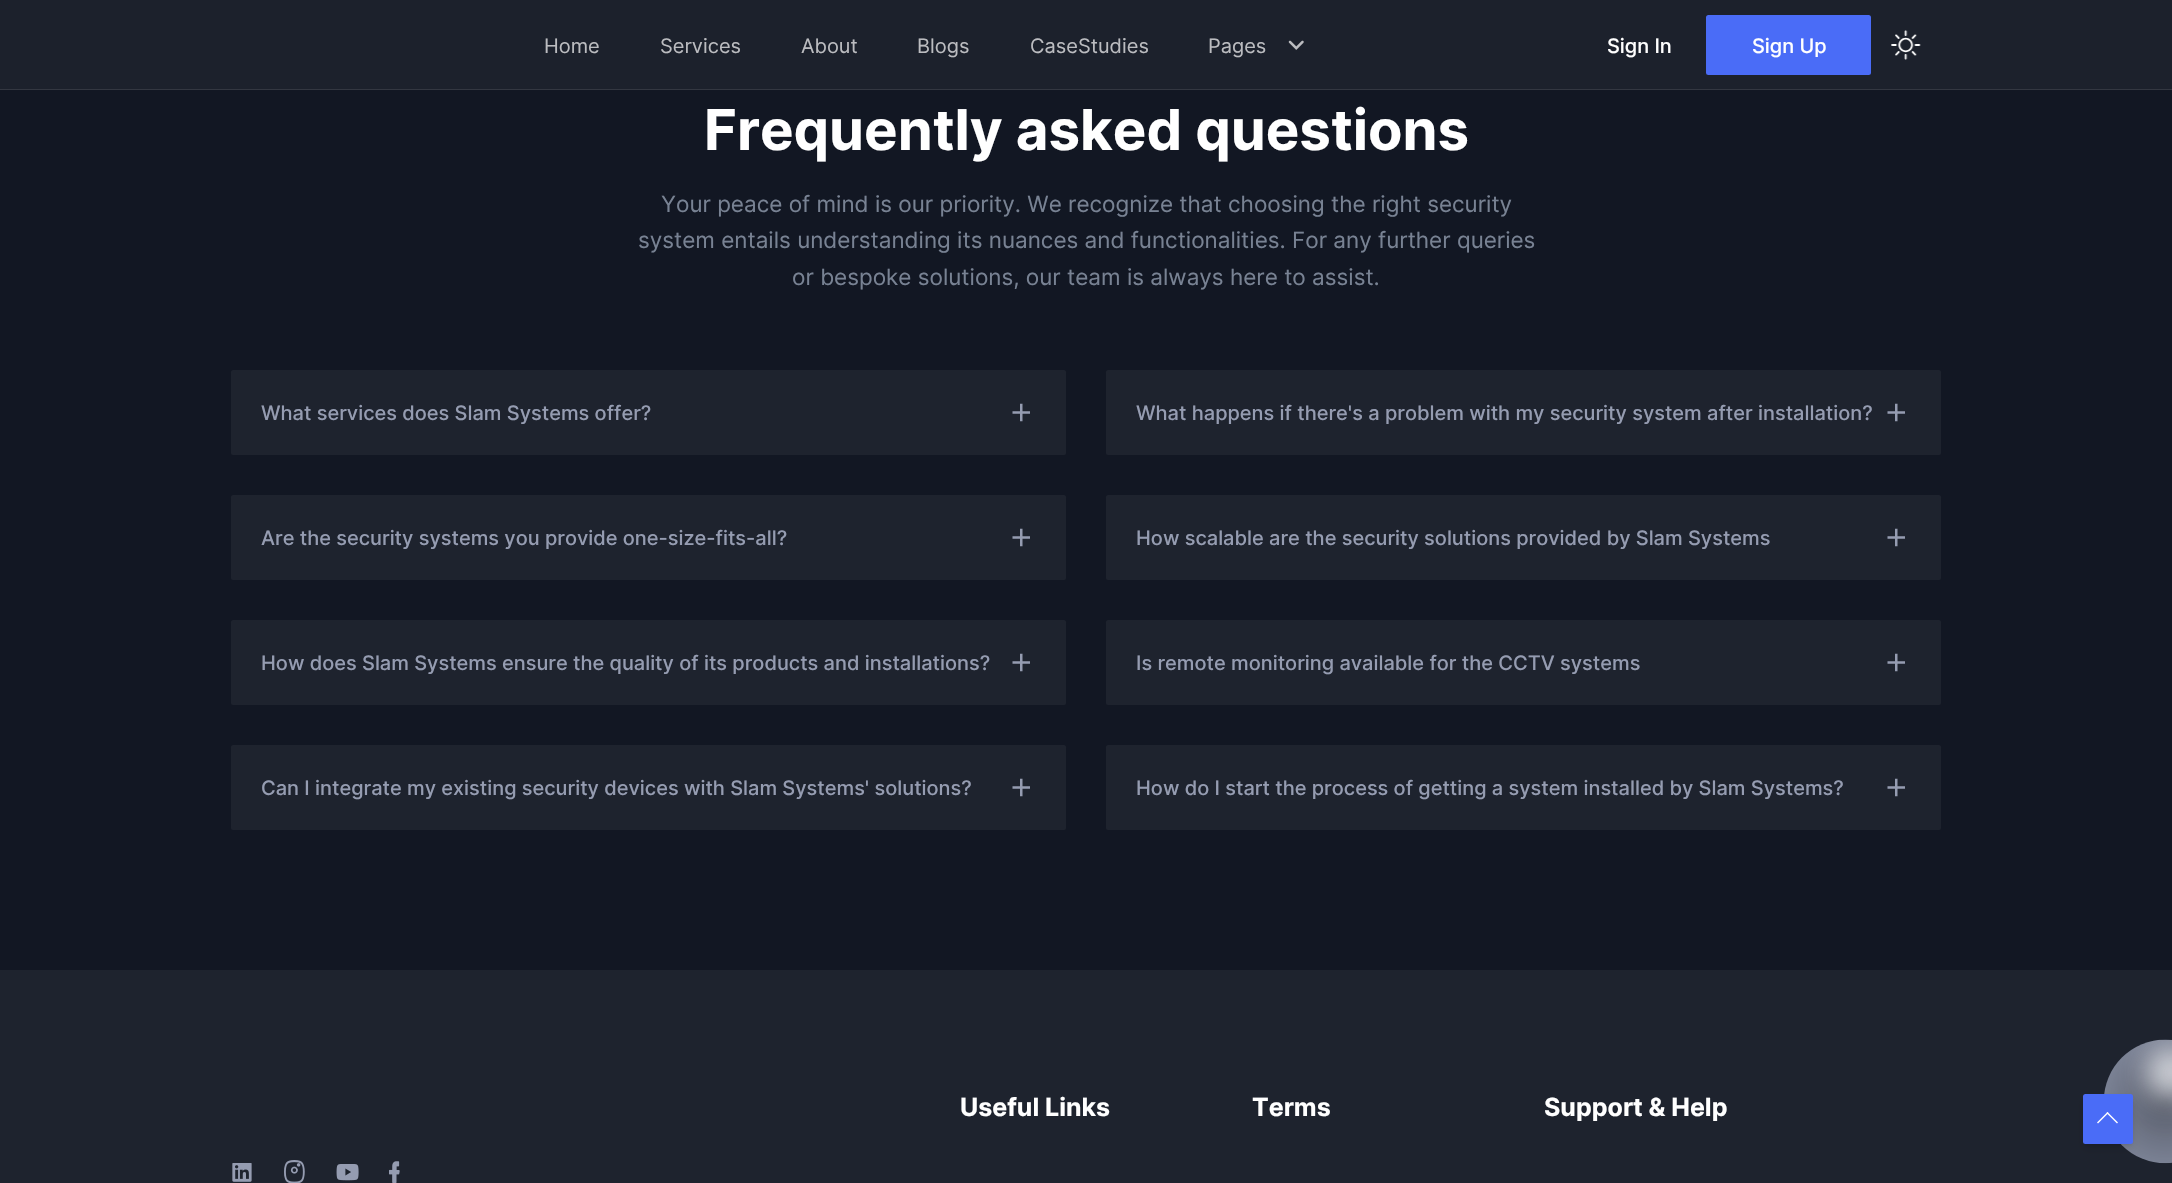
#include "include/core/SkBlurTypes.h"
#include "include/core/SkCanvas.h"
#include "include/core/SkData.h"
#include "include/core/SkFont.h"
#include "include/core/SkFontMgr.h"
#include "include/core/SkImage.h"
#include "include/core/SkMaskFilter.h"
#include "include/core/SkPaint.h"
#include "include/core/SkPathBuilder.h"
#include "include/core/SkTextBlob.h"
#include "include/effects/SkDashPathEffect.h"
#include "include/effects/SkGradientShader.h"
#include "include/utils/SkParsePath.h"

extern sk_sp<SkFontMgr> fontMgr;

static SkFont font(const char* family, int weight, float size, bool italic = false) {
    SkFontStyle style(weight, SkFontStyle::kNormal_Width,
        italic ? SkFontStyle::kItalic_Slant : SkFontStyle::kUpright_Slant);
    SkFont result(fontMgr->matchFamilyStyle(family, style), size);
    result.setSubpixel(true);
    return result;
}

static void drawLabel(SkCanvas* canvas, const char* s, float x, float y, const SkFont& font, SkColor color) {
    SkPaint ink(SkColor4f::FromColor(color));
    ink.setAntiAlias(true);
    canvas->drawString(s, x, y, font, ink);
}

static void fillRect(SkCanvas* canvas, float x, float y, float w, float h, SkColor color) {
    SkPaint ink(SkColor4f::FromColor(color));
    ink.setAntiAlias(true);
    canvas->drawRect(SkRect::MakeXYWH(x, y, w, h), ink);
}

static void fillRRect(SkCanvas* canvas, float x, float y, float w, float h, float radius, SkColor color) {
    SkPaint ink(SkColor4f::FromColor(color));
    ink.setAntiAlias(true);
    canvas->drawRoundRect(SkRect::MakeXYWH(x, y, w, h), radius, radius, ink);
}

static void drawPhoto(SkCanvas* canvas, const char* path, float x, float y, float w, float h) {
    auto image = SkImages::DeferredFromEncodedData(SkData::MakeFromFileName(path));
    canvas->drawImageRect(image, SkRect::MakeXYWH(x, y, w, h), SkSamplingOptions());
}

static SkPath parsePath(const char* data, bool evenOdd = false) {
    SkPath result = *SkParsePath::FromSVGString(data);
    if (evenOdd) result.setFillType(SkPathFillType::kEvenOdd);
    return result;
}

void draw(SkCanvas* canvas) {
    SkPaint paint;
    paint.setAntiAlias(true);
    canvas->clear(0xFF121723);
    fillRect(canvas, 0, 0, 2172, 89, 0xFF1C212C);
    fillRect(canvas, 0, 89, 2172, 1, 0xFF333741);
    SkFont font1 = font("Inter", 400, 20);
    drawLabel(canvas, "Home", 544, 53, font1, 0xFFBBBCC0);
    drawLabel(canvas, "Services", 660, 53, font1, 0xFFBBBCC0);
    drawLabel(canvas, "About", 801, 53, font1, 0xFFBBBCC0);
    drawLabel(canvas, "Blogs", 917, 53, font1, 0xFFBBBCC0);
    drawLabel(canvas, "CaseStudies", 1030, 53, font1, 0xFFBBBCC0);
    drawLabel(canvas, "Pages", 1208, 53, font1, 0xFFBBBCC0);
    drawPhoto(canvas, "assets/img1.png", 1288, 40, 16, 10);
    SkFont font2 = font("Inter", 500, 20);
    drawLabel(canvas, "Sign In", 1607, 53, font2, 0xFFFFFFFF);
    fillRRect(canvas, 1706, 15, 165, 60, 2.5f, 0xFF4A6CF7);
    drawLabel(canvas, "Sign Up", 1752, 53, font2, 0xFFFFFFFF);
    drawPhoto(canvas, "assets/img2.png", 1891, 30, 30, 30);
    SkFont font3 = font("Inter", 700, 56.25f);
    drawLabel(canvas, "Frequently asked questions", 704, 150, font3, 0xFFFFFFFF);
    SkFont font4 = font("Inter", 400, 22.5f);
    drawLabel(canvas, "Your peace of mind is our priority. We recognize that choosing the right security", 661, 212, font4, 0xFF788293);
    drawLabel(canvas, "system entails understanding its nuances and functionalities. For any further queries", 638, 248, font4, 0xFF788293);
    drawLabel(canvas, "or bespoke solutions, our team is always here to assist.", 792, 285, font4, 0xFF788293);
    fillRRect(canvas, 231, 370, 835, 85, 2.5f, 0xFF1E232E);
    drawLabel(canvas, "What services does Slam Systems offer?", 261, 420, font2, 0xFF959CB1);
    drawPhoto(canvas, "assets/img3.png", 1012, 403, 18, 19);
    fillRRect(canvas, 231, 495, 835, 85, 2.5f, 0xFF1E232E);
    drawLabel(canvas, "Are the security systems you provide one-size-fits-all?", 261, 545, font2, 0xFF959CB1);
    drawPhoto(canvas, "assets/img3.png", 1012, 528, 18, 19);
    fillRRect(canvas, 231, 620, 835, 85, 2.5f, 0xFF1E232E);
    drawLabel(canvas, "How does Slam Systems ensure the quality of its products and installations?", 261, 670, font2, 0xFF959CB1);
    drawPhoto(canvas, "assets/img3.png", 1012, 653, 18, 19);
    fillRRect(canvas, 231, 745, 835, 85, 2.5f, 0xFF1E232E);
    drawLabel(canvas, "Can I integrate my existing security devices with Slam Systems' solutions?", 261, 795, font2, 0xFF959CB1);
    drawPhoto(canvas, "assets/img3.png", 1012, 778, 18, 19);
    fillRRect(canvas, 1106, 370, 835, 85, 2.5f, 0xFF1E232E);
    drawLabel(canvas, "What happens if there's a problem with my security system after installation?", 1136, 420, font2, 0xFF959CB1);
    drawPhoto(canvas, "assets/img3.png", 1887, 403, 18, 19);
    fillRRect(canvas, 1106, 495, 835, 85, 2.5f, 0xFF1E232E);
    drawLabel(canvas, "How scalable are the security solutions provided by Slam Systems", 1136, 545, font2, 0xFF959CB1);
    drawPhoto(canvas, "assets/img3.png", 1887, 528, 18, 19);
    fillRRect(canvas, 1106, 620, 835, 85, 2.5f, 0xFF1E232E);
    drawLabel(canvas, "Is remote monitoring available for the CCTV systems", 1136, 670, font2, 0xFF959CB1);
    drawPhoto(canvas, "assets/img3.png", 1887, 653, 18, 19);
    fillRRect(canvas, 1106, 745, 835, 85, 2.5f, 0xFF1E232E);
    drawLabel(canvas, "How do I start the process of getting a system installed by Slam Systems?", 1136, 795, font2, 0xFF959CB1);
    drawPhoto(canvas, "assets/img3.png", 1887, 778, 18, 19);
    fillRect(canvas, 0, 970, 2172, 213, 0xFF1E232E);
    SkFont font5 = font("Inter", 700, 25);
    drawLabel(canvas, "Useful Links", 960, 1116, font5, 0xFFFFFFFF);
    drawLabel(canvas, "Terms", 1252, 1116, font5, 0xFFFFFFFF);
    drawLabel(canvas, "Support & Help", 1544, 1116, font5, 0xFFFFFFFF);
    drawPhoto(canvas, "assets/img4.png", 232, 1163, 20, 19);
    drawPhoto(canvas, "assets/img5.png", 284, 1160, 21, 23);
    drawPhoto(canvas, "assets/img6.png", 336, 1164, 23, 17);
    drawPhoto(canvas, "assets/img7.png", 389, 1161, 11, 22);
    drawPhoto(canvas, "assets/img8.png", 2104, 1039, 68, 125);
    paint.setColor(0x1A000000);
    paint.setMaskFilter(SkMaskFilter::MakeBlur(kNormal_SkBlurStyle, 2.5f));
    canvas->drawRect(SkRect::MakeXYWH(2085, 1099, 45, 45), paint);
    paint.setMaskFilter(nullptr);
    paint.setMaskFilter(SkMaskFilter::MakeBlur(kNormal_SkBlurStyle, 4));
    canvas->drawRoundRect(SkRect::MakeXYWH(2084, 1100, 47, 48), 1, 1, paint);
    paint.setMaskFilter(nullptr);
    fillRRect(canvas, 2083, 1094, 50, 50, 2.5f, 0xFF4A6CF7);
    paint.setColor(0xFFFFFFFF);
    canvas->drawPath(parsePath("M2107.5 1112L2118 1122.5L2117 1123.5L2106.5 1113Z"), paint);
    canvas->drawPath(parsePath("M2107.5 1112L2108.5 1113L2098 1123.5L2097 1122.5Z"), paint);
}
